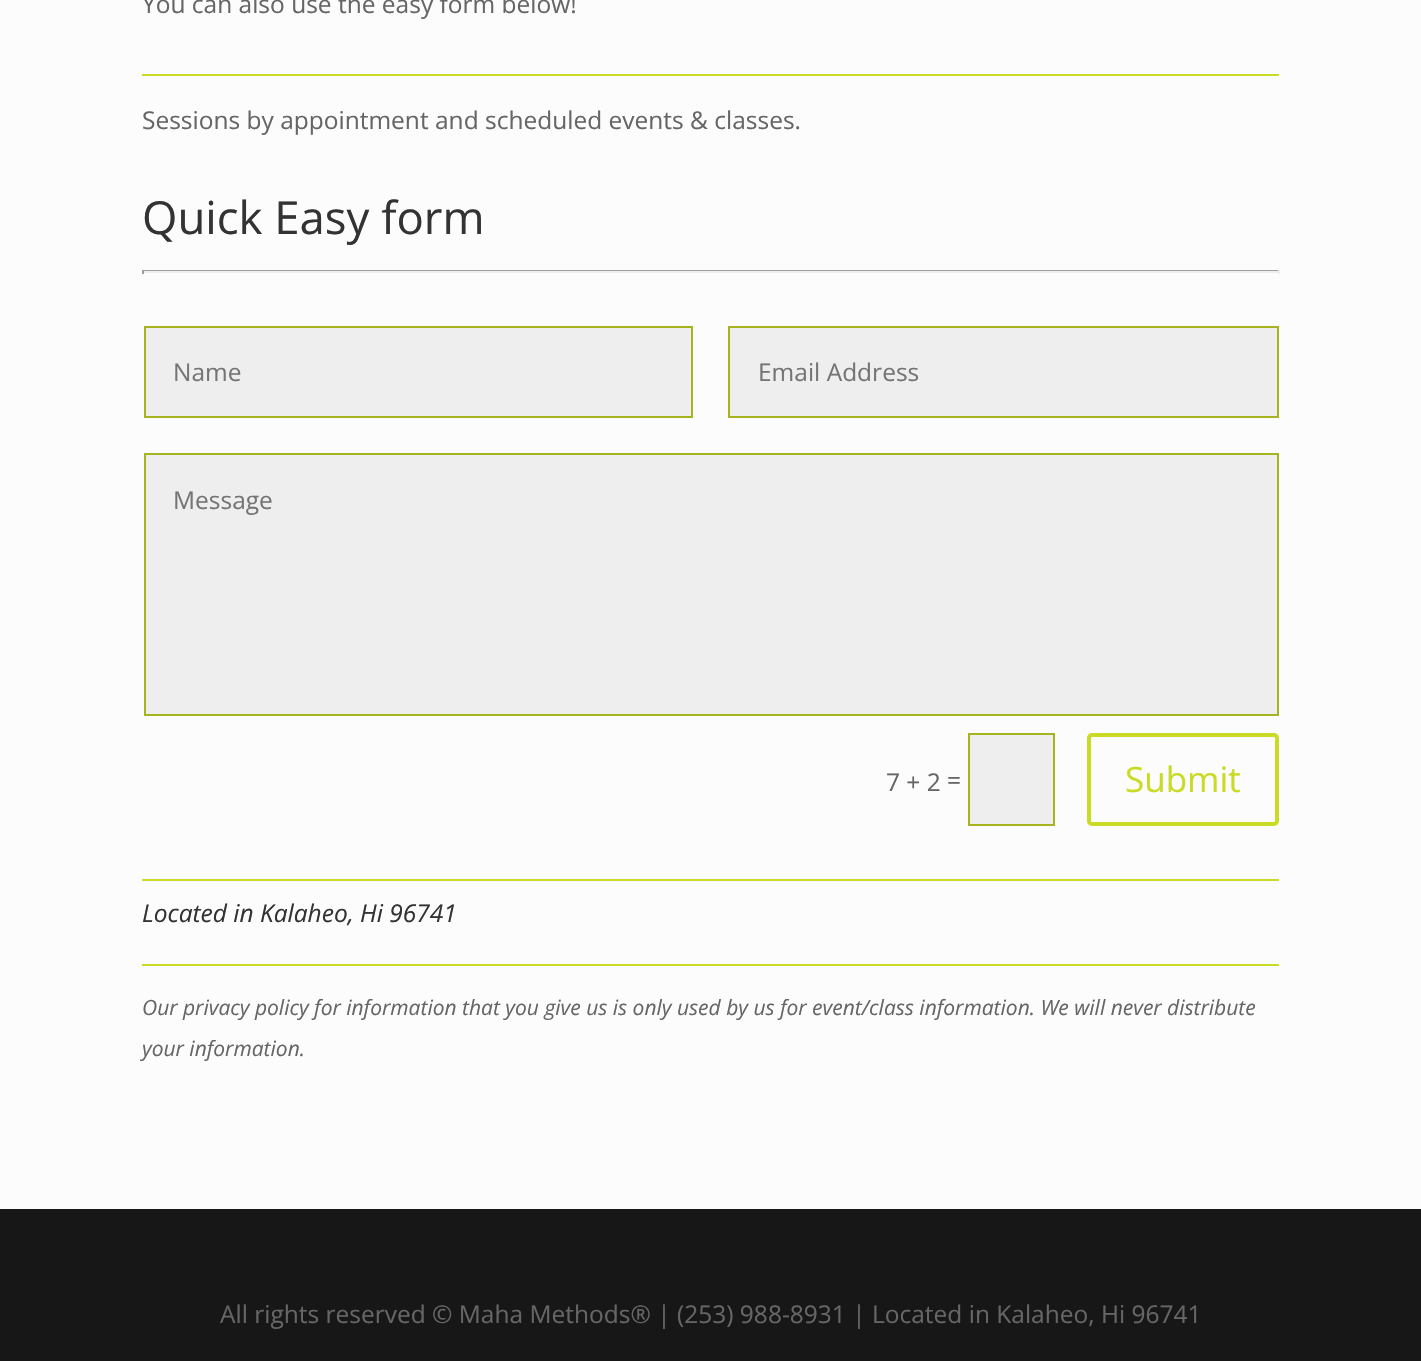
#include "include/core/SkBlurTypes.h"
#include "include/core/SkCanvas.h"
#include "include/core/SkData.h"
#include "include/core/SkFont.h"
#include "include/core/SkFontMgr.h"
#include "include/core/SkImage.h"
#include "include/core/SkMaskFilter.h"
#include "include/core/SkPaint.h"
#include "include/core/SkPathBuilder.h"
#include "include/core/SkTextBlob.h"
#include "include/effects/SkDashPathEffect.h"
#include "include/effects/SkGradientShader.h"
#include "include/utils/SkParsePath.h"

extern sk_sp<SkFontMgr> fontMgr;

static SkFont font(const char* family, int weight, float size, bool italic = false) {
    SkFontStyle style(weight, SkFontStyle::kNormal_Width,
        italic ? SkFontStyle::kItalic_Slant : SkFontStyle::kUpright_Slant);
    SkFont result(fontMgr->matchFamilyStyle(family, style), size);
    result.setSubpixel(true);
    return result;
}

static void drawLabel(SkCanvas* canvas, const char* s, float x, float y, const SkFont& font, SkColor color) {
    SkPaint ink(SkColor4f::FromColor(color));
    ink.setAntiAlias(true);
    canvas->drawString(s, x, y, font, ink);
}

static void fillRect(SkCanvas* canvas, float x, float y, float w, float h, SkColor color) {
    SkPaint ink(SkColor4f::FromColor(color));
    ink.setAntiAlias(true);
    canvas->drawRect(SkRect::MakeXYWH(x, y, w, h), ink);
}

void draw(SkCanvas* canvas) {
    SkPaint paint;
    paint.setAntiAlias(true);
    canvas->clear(0xFF171717);
    fillRect(canvas, 0, 0, 1421, 1209, 0xFFFCFCFC);
    SkFont font1 = font("Open Sans", 400, 24.5f);
    drawLabel(canvas, "You can also use the easy form below!", 142, 13, font1, 0xFF666666);
    fillRect(canvas, 142, 74, 1137, 2, 0xFFC9DB25);
    drawLabel(canvas, "Sessions by appointment and scheduled events & classes.", 142, 129, font1, 0xFF666666);
    SkFont font2 = font("Open Sans", 400, 45.5f);
    drawLabel(canvas, "Quick Easy form", 142, 234, font2, 0xFF333333);
    fillRect(canvas, 142, 270, 1137, 1, 0xFF9F9F9F);
    fillRect(canvas, 1278, 270, 2, 4, 0xFFEEEEEE);
    fillRect(canvas, 142, 271, 1137, 2, 0xFFEEEEEE);
    fillRect(canvas, 142, 270, 2, 4, 0xFF9F9F9F);
    paint.setColor(0xFFEEEEEE);
    canvas->drawRect(SkRect::MakeXYWH(145, 327, 547, 90), paint);
    paint.setStroke(true);
    paint.setStrokeWidth(2);
    paint.setColor(0xFFA6B51E);
    canvas->drawRect(SkRect::MakeXYWH(145, 327, 547, 90), paint);
    drawLabel(canvas, "Name", 173, 381, font1, 0xFF757575);
    paint.setStroke(false);
    paint.setColor(0xFFEEEEEE);
    canvas->drawRect(SkRect::MakeXYWH(729, 327, 549, 90), paint);
    paint.setStroke(true);
    paint.setColor(0xFFA6B51E);
    canvas->drawRect(SkRect::MakeXYWH(729, 327, 549, 90), paint);
    drawLabel(canvas, "Email Address", 758, 381, font1, 0xFF757575);
    paint.setStroke(false);
    paint.setColor(0xFFEEEEEE);
    canvas->drawRect(SkRect::MakeXYWH(145, 454, 1133, 261), paint);
    paint.setStroke(true);
    paint.setColor(0xFFA6B51E);
    canvas->drawRect(SkRect::MakeXYWH(145, 454, 1133, 261), paint);
    drawLabel(canvas, "Message", 173, 509, font1, 0xFF757575);
    drawLabel(canvas, "7 + 2", 886, 791, font1, 0xFF666666);
    drawLabel(canvas, "=", 947, 789, font1, 0xFF666666);
    paint.setStroke(false);
    paint.setColor(0xFFEEEEEE);
    canvas->drawRect(SkRect::MakeXYWH(969, 734, 85, 91), paint);
    paint.setStroke(true);
    paint.setColor(0xFFA6B51E);
    canvas->drawRect(SkRect::MakeXYWH(969, 734, 85, 91), paint);
    paint.setStrokeWidth(4);
    paint.setColor(0xFFC9DB25);
    canvas->drawRoundRect(SkRect::MakeXYWH(1089, 735, 188, 89), 3, 3, paint);
    SkFont font3 = font("Open Sans", 400, 35);
    drawLabel(canvas, "Submit", 1125, 792, font3, 0xFFC9DB25);
    fillRect(canvas, 142, 879, 1137, 2, 0xFFC9DB25);
    SkFont font4 = font("Open Sans", 400, 24.5f, true);
    drawLabel(canvas, "Located in Kalaheo, Hi 96741", 142, 922, font4, 0xFF333333);
    fillRect(canvas, 142, 964, 1137, 2, 0xFFC9DB25);
    SkFont font5 = font("Open Sans", 400, 21, true);
    drawLabel(canvas, "Our privacy policy for information that you give us is only used by us for event/class information. We will never distribute", 142, 1015, font5, 0xFF666666);
    drawLabel(canvas, "your information.", 142, 1056, font5, 0xFF666666);
    drawLabel(canvas, "All rights reserved © Maha Methods® | (253) 988-8931 | Located in Kalaheo, Hi 96741", 220, 1323, font1, 0xFF666666);
}
